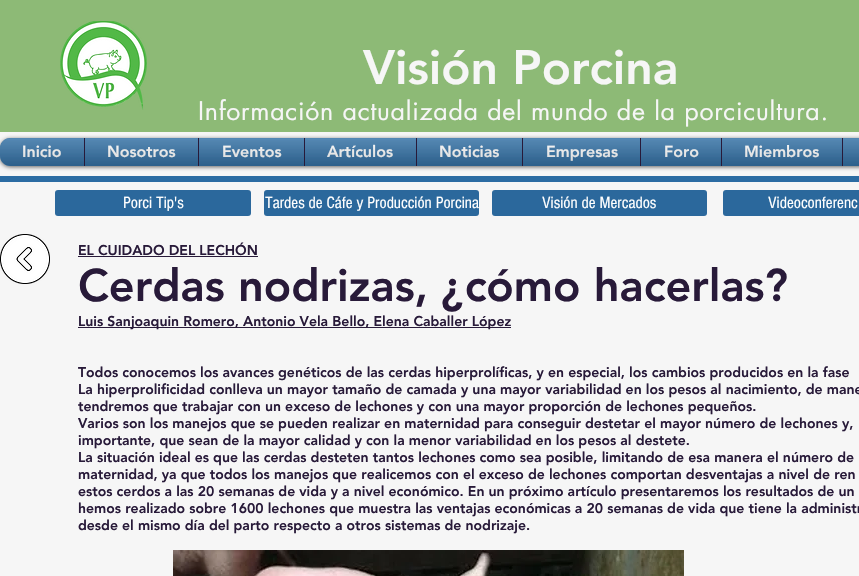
#include "include/core/SkBlurTypes.h"
#include "include/core/SkCanvas.h"
#include "include/core/SkData.h"
#include "include/core/SkFont.h"
#include "include/core/SkFontMgr.h"
#include "include/core/SkImage.h"
#include "include/core/SkMaskFilter.h"
#include "include/core/SkPaint.h"
#include "include/core/SkPathBuilder.h"
#include "include/core/SkTextBlob.h"
#include "include/effects/SkDashPathEffect.h"
#include "include/effects/SkGradientShader.h"
#include "include/utils/SkParsePath.h"

extern sk_sp<SkFontMgr> fontMgr;

static SkFont font(const char* family, int weight, float size, bool italic = false) {
    SkFontStyle style(weight, SkFontStyle::kNormal_Width,
        italic ? SkFontStyle::kItalic_Slant : SkFontStyle::kUpright_Slant);
    SkFont result(fontMgr->matchFamilyStyle(family, style), size);
    result.setSubpixel(true);
    return result;
}

static void drawLabel(SkCanvas* canvas, const char* s, float x, float y, const SkFont& font, SkColor color) {
    SkPaint ink(SkColor4f::FromColor(color));
    ink.setAntiAlias(true);
    canvas->drawString(s, x, y, font, ink);
}

static void drawTracked(SkCanvas* canvas, const char* s, float x, float y, const SkFont& font, const SkPaint& ink, float letter, float word) {
    std::vector<SkGlyphID> glyphs(font.countText(s, strlen(s), SkTextEncoding::kUTF8));
    std::vector<float> xs(glyphs.size());
    font.textToGlyphs(s, strlen(s), SkTextEncoding::kUTF8, glyphs);
    font.getXPos(glyphs, xs, x);
    float extra = 0;
    for (size_t i = 0; i < glyphs.size(); i++) {
        xs[i] += extra;
        extra += letter + word * (glyphs[i] == font.unicharToGlyph(' '));
    }
    canvas->drawTextBlob(SkTextBlob::MakeFromPosHGlyphs(glyphs, xs, y, font), 0, 0, ink);
}

static void fillRect(SkCanvas* canvas, float x, float y, float w, float h, SkColor color) {
    SkPaint ink(SkColor4f::FromColor(color));
    ink.setAntiAlias(true);
    canvas->drawRect(SkRect::MakeXYWH(x, y, w, h), ink);
}

static void fillRRect(SkCanvas* canvas, float x, float y, float w, float h, float radius, SkColor color) {
    SkPaint ink(SkColor4f::FromColor(color));
    ink.setAntiAlias(true);
    canvas->drawRoundRect(SkRect::MakeXYWH(x, y, w, h), radius, radius, ink);
}

static void drawPhoto(SkCanvas* canvas, const char* path, float x, float y, float w, float h) {
    auto image = SkImages::DeferredFromEncodedData(SkData::MakeFromFileName(path));
    canvas->drawImageRect(image, SkRect::MakeXYWH(x, y, w, h), SkSamplingOptions());
}

static SkPath parsePath(const char* data, bool evenOdd = false) {
    SkPath result = *SkParsePath::FromSVGString(data);
    if (evenOdd) result.setFillType(SkPathFillType::kEvenOdd);
    return result;
}

void draw(SkCanvas* canvas) {
    SkPaint paint;
    paint.setAntiAlias(true);
    canvas->clear(0xFFF6F6F6);
    fillRect(canvas, 0, 0, 859, 132, 0xFF8DBA76);
    drawPhoto(canvas, "assets/img1.png", 60, 21, 87, 89);
    SkFont font1 = font("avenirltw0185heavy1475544", 900, 48);
    drawLabel(canvas, "Visión Porcina", 363, 84, font1, 0xFFF6F6F6);
    SkFont font2 = font("futura", 400, 25);
    paint.setColor(0xFFF6F6F6);
    drawTracked(canvas, "Información actualizada del mundo de la porcicultura.", 198, 120, font2, paint, 0.75f, 0);
    paint.setColor(0x99000000);
    paint.setMaskFilter(SkMaskFilter::MakeBlur(kNormal_SkBlurStyle, 2));
    canvas->drawRoundRect(SkRect::MakeXYWH(0, 139, 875, 28), 10, 10, paint);
    paint.setMaskFilter(nullptr);
    drawPhoto(canvas, "assets/img2.png", 0, 138, 10, 28);
    drawPhoto(canvas, "assets/img3.png", 0, 143, 2, 15);
    paint.setColor(0xFF2B6CA3);
    canvas->drawPath(parsePath("M10 138H84V166H10C4.5 166 0 161.5 0 156V148C0 142.5 4.5 138 10 138Z"), paint);
    SkFont font3 = font("avenirltw0185heavy1475544", 900, 16);
    drawLabel(canvas, "Inicio", 22, 157, font3, 0xFFFFFFFF);
    drawPhoto(canvas, "assets/img4.png", 0, 138, 84, 28);
    drawPhoto(canvas, "assets/img5.png", 0, 140, 84, 26);
    fillRect(canvas, 85, 138, 113, 28, 0xFF2B6CA3);
    fillRect(canvas, 84, 138, 1, 28, 0xFF281A39);
    drawLabel(canvas, "Nosotros", 107, 157, font3, 0xFFFFFFFF);
    drawPhoto(canvas, "assets/img6.png", 85, 138, 113, 28);
    drawPhoto(canvas, "assets/img7.png", 85, 140, 113, 26);
    fillRect(canvas, 199, 138, 105, 28, 0xFF2B6CA3);
    fillRect(canvas, 198, 138, 1, 28, 0xFF281A39);
    drawLabel(canvas, "Eventos", 222, 157, font3, 0xFFFFFFFF);
    drawPhoto(canvas, "assets/img8.png", 199, 138, 105, 28);
    drawPhoto(canvas, "assets/img9.png", 199, 140, 105, 26);
    fillRect(canvas, 305, 138, 111, 28, 0xFF2B6CA3);
    fillRect(canvas, 304, 138, 1, 28, 0xFF281A39);
    drawLabel(canvas, "Artículos", 327, 157, font3, 0xFFFFFFFF);
    drawPhoto(canvas, "assets/img10.png", 305, 138, 111, 28);
    drawPhoto(canvas, "assets/img11.png", 305, 140, 111, 26);
    fillRect(canvas, 417, 138, 105, 28, 0xFF2B6CA3);
    fillRect(canvas, 416, 138, 1, 28, 0xFF281A39);
    drawLabel(canvas, "Noticias", 439, 157, font3, 0xFFFFFFFF);
    drawPhoto(canvas, "assets/img12.png", 417, 138, 105, 28);
    drawPhoto(canvas, "assets/img13.png", 417, 140, 105, 26);
    fillRect(canvas, 523, 138, 117, 28, 0xFF2B6CA3);
    fillRect(canvas, 522, 138, 1, 28, 0xFF281A39);
    drawLabel(canvas, "Empresas", 546, 157, font3, 0xFFFFFFFF);
    drawPhoto(canvas, "assets/img14.png", 523, 138, 117, 28);
    drawPhoto(canvas, "assets/img15.png", 523, 140, 117, 26);
    fillRect(canvas, 641, 138, 80, 28, 0xFF2B6CA3);
    fillRect(canvas, 640, 138, 1, 28, 0xFF281A39);
    drawLabel(canvas, "Foro", 664, 157, font3, 0xFFFFFFFF);
    drawPhoto(canvas, "assets/img16.png", 641, 138, 80, 28);
    drawPhoto(canvas, "assets/img17.png", 641, 140, 80, 26);
    fillRect(canvas, 722, 138, 120, 28, 0xFF2B6CA3);
    fillRect(canvas, 721, 138, 1, 28, 0xFF281A39);
    drawLabel(canvas, "Miembros", 744, 157, font3, 0xFFFFFFFF);
    drawPhoto(canvas, "assets/img18.png", 722, 138, 120, 28);
    drawPhoto(canvas, "assets/img19.png", 722, 140, 120, 26);
    fillRect(canvas, 843, 138, 16, 28, 0xFF2B6CA3);
    fillRect(canvas, 842, 138, 1, 28, 0xFF281A39);
    drawPhoto(canvas, "assets/img20.png", 843, 138, 16, 28);
    drawPhoto(canvas, "assets/img21.png", 843, 140, 16, 26);
    fillRect(canvas, 0, 176, 859, 6, 0xFF2B6CA3);
    fillRRect(canvas, 55, 190, 196, 26, 3, 0xFF2B689C);
    SkFont font4 = font("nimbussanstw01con", 400, 17);
    drawLabel(canvas, "Porci Tip's", 123, 208, font4, 0xFFFFFFFF);
    fillRRect(canvas, 264, 190, 215, 26, 3, 0xFF2B689C);
    drawLabel(canvas, "Tardes de Cáfe y Producción Porcina", 265, 208, font4, 0xFFFFFFFF);
    fillRRect(canvas, 492, 190, 215, 26, 3, 0xFF2B689C);
    drawLabel(canvas, "Visión de Mercados", 542, 208, font4, 0xFFFFFFFF);
    fillRRect(canvas, 723, 190, 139, 26, 3, 0xFF2B689C);
    drawLabel(canvas, "Videoconferenc", 768, 208, font4, 0xFFFFFFFF);
    drawPhoto(canvas, "assets/img22.png", 0, 234, 50, 50);
    SkFont font5 = font("avenirltw0185heavy1475544", 900, 14);
    drawLabel(canvas, "EL CUIDADO DEL LECHÓN", 78, 255, font5, 0xFF281A39);
    fillRect(canvas, 78, 256, 180, 1, 0xFF281A39);
    SkFont font6 = font("avenirltw0185heavy1475544", 900, 45);
    drawLabel(canvas, "Cerdas nodrizas, ¿cómo hacerlas?", 78, 301, font6, 0xFF281A39);
    fillRect(canvas, 78, 327, 433, 1, 0xFF281A39);
    drawLabel(canvas, "Luis Sanjoaquin Romero, Antonio Vela Bello, Elena Caballer López", 78, 326, font5, 0xFF281A39);
    drawLabel(canvas, "Todos conocemos los avances genéticos de las cerdas hiperprolíficas, y en especial, los cambios producidos en la fase", 78, 377, font5, 0xFF281A39);
    drawLabel(canvas, "La hiperprolificidad conlleva un mayor tamaño de camada y una mayor variabilidad en los pesos al nacimiento, de mane", 78, 394, font5, 0xFF281A39);
    drawLabel(canvas, "tendremos que trabajar con un exceso de lechones y con una mayor proporción de lechones pequeños.", 78, 411, font5, 0xFF281A39);
    drawLabel(canvas, "Varios son los manejos que se pueden realizar en maternidad para conseguir destetar el mayor número de lechones y,", 78, 428, font5, 0xFF281A39);
    drawLabel(canvas, "importante, que sean de la mayor calidad y con la menor variabilidad en los pesos al destete.", 78, 445, font5, 0xFF281A39);
    drawLabel(canvas, "La situación ideal es que las cerdas desteten tantos lechones como sea posible, limitando de esa manera el número de", 78, 462, font5, 0xFF281A39);
    drawLabel(canvas, "maternidad, ya que todos los manejos que realicemos con el exceso de lechones comportan desventajas a nivel de ren", 78, 479, font5, 0xFF281A39);
    drawLabel(canvas, "estos cerdos a las 20 semanas de vida y a nivel económico. En un próximo artículo presentaremos los resultados de un", 78, 496, font5, 0xFF281A39);
    drawLabel(canvas, "hemos realizado sobre 1600 lechones que muestra las ventajas económicas a 20 semanas de vida que tiene la administr", 78, 513, font5, 0xFF281A39);
    drawLabel(canvas, "desde el mismo día del parto respecto a otros sistemas de nodrizaje.", 78, 530, font5, 0xFF281A39);
    drawPhoto(canvas, "assets/img23.png", 173, 550, 511, 26);
}
